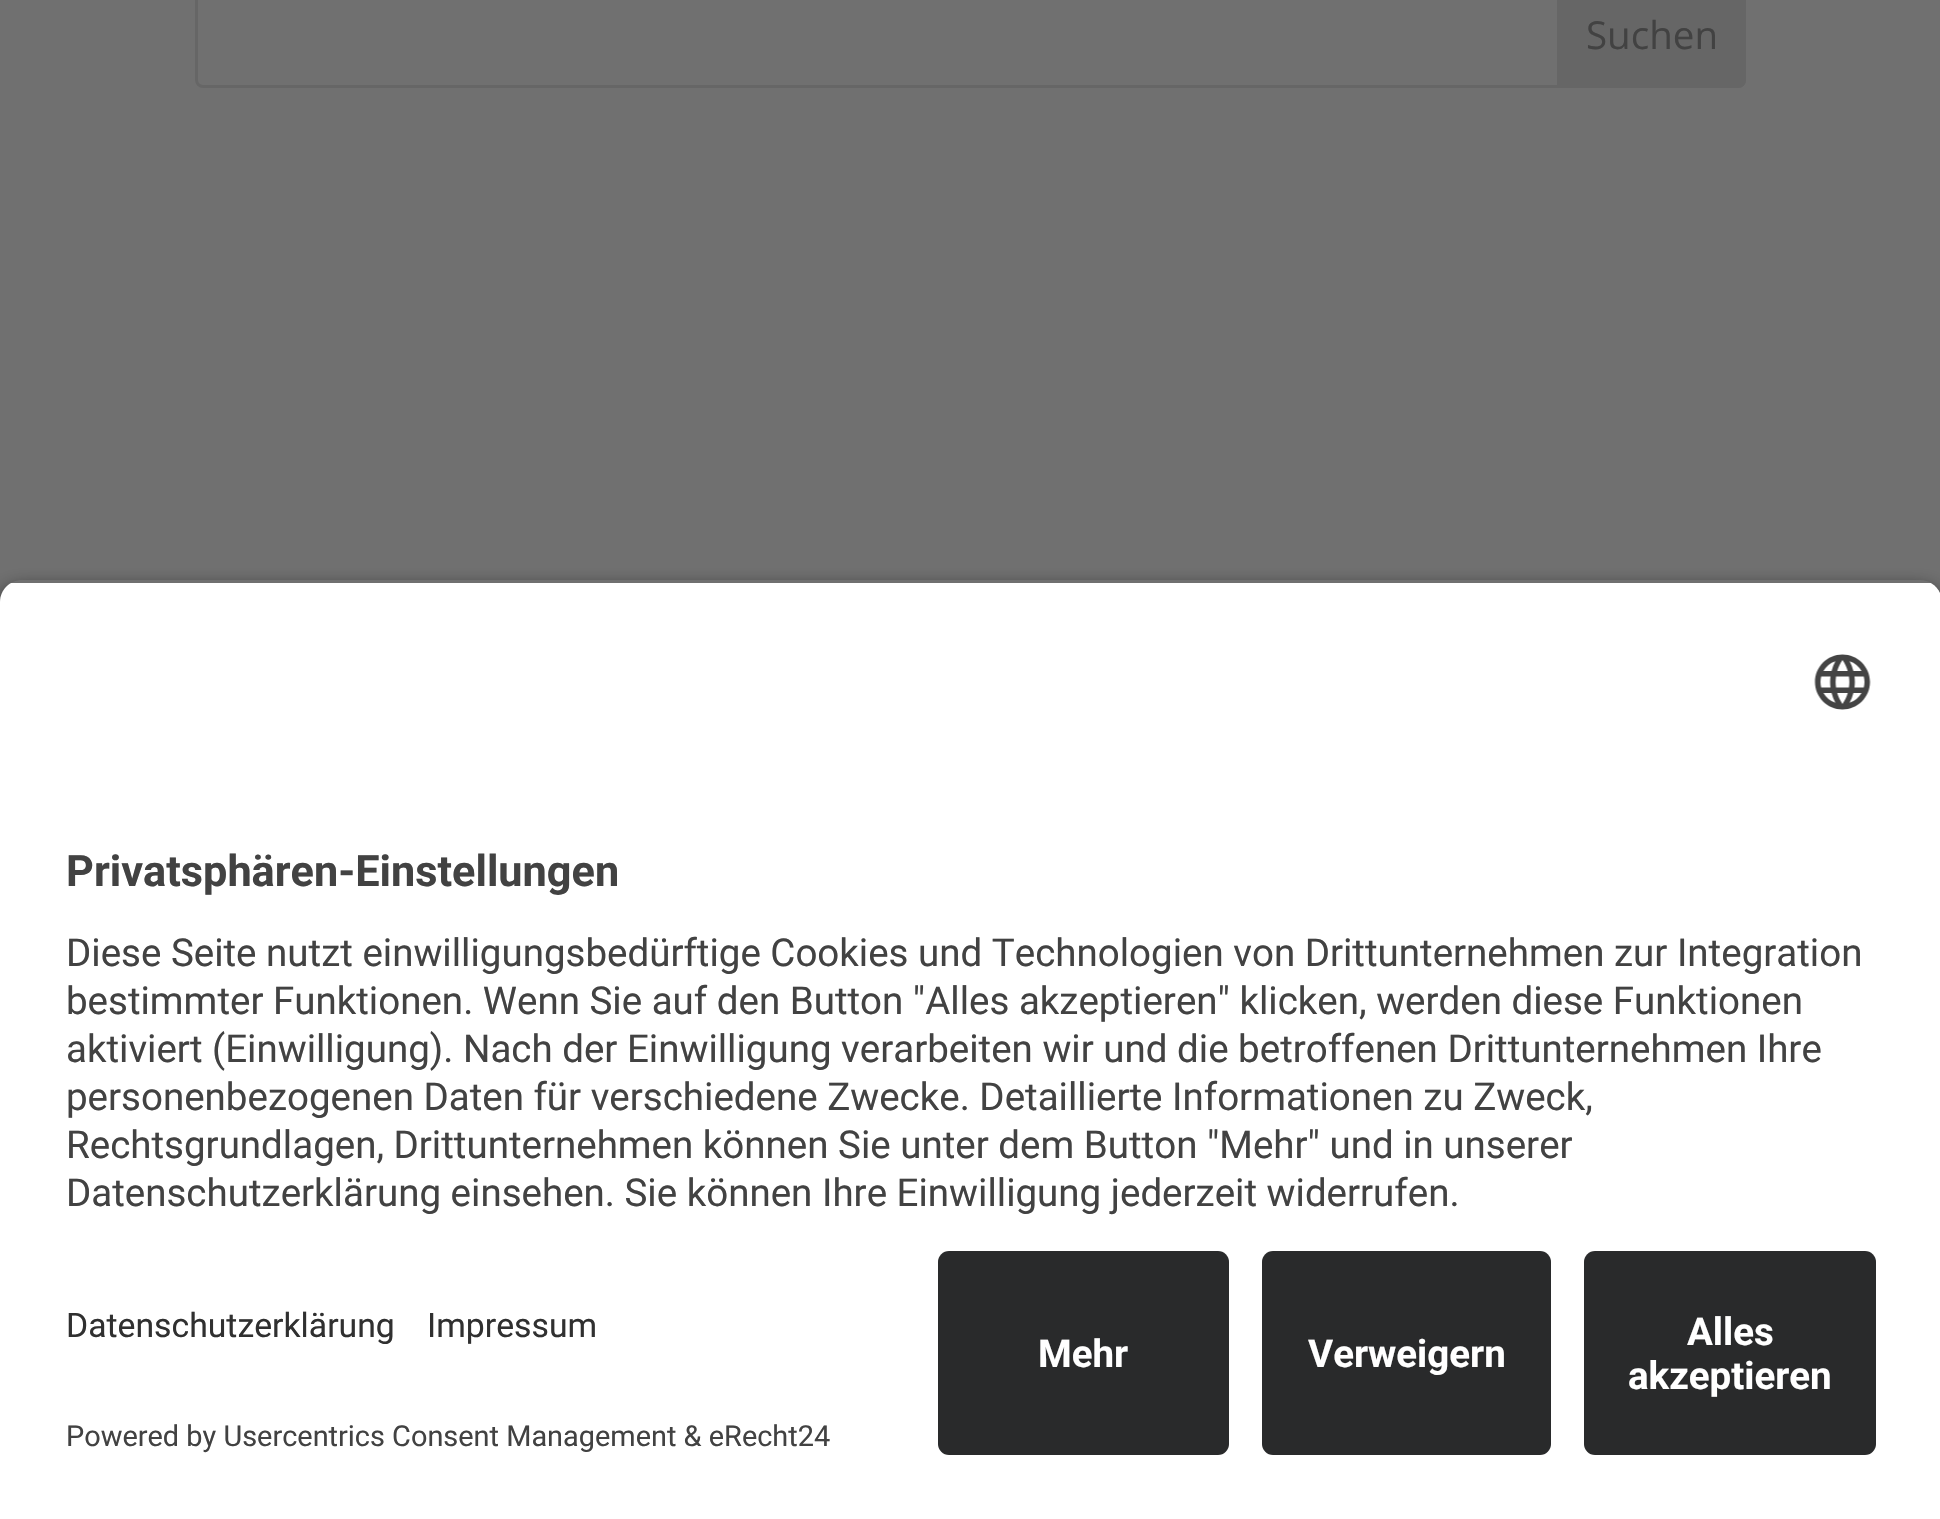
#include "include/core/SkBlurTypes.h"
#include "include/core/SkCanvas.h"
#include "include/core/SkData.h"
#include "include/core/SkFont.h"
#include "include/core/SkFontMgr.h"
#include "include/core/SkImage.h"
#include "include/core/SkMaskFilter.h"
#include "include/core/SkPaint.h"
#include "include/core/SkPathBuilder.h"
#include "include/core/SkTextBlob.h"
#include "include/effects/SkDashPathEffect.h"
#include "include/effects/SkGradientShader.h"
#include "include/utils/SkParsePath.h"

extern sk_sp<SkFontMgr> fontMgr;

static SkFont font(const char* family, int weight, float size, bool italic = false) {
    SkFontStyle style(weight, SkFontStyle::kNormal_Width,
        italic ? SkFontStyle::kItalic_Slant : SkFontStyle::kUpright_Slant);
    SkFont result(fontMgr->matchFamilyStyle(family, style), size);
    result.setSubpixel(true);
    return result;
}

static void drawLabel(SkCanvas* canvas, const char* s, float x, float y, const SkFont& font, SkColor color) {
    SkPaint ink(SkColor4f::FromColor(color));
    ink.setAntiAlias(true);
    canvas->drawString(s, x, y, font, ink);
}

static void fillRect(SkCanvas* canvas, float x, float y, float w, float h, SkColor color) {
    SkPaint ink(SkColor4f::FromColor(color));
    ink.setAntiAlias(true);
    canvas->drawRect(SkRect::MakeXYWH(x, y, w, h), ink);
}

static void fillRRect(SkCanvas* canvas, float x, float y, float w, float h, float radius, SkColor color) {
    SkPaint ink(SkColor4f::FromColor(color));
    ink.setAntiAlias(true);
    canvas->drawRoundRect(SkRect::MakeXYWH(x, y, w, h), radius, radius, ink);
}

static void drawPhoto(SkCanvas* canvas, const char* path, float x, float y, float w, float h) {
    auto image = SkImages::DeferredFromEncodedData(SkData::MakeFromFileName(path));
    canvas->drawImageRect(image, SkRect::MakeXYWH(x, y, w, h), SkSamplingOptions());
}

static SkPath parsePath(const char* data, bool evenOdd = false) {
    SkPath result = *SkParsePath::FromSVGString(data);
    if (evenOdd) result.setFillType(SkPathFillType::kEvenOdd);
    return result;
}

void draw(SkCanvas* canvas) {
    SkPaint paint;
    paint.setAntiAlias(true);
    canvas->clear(0xFF707070);
    paint.setStroke(true);
    paint.setStrokeWidth(3);
    paint.setColor(0xFF666666);
    canvas->drawRoundRect(SkRect::MakeXYWH(196.5f, -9.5f, 1548, 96), 6.5f, 6.5f, paint);
    paint.setStroke(false);
    canvas->drawPath(parsePath("M1557-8H1738C1742.5-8 1746-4.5 1746 0V80C1746 84.5 1742.5 88 1738 88H1557Z"), paint);
    SkFont font1 = font("Open Sans", 400, 38.5f);
    drawLabel(canvas, "Suchen", 1586, 49, font1, 0xFF424242);
    canvas->save();
    canvas->clipPath(parsePath("M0 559H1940V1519H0ZM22 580H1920C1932 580 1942 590 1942 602V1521H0V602C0 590 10 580 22 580Z", true), true);
    paint.setColor(0xCC000000);
    paint.setMaskFilter(SkMaskFilter::MakeBlur(kNormal_SkBlurStyle, 9.5f));
    canvas->drawRoundRect(SkRect::MakeXYWH(0, 589, 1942, 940), 22, 22, paint);
    paint.setMaskFilter(nullptr);
    canvas->restore();
    canvas->save();
    canvas->clipPath(parsePath("M22 580H1920C1932 580 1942 590 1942 602V1229H0V602C0 590 10 580 22 580Z"), true);
    fillRect(canvas, 0, 583, 1940, 646, 0xFFFFFFFF);
    canvas->restore();
    drawPhoto(canvas, "assets/img1.png", 1814, 654, 57, 56);
    SkFont font2 = font("Roboto", 700, 43.25f);
    drawLabel(canvas, "Privatsphären-Einstellungen", 66, 886, font2, 0xFF424242);
    SkFont font3 = font("Roboto", 400, 38.5f);
    drawLabel(canvas, "Diese Seite nutzt einwilligungsbedürftige Cookies und Technologien von Drittunternehmen zur Integration", 66, 966, font3, 0xFF424242);
    drawLabel(canvas, "bestimmter Funktionen. Wenn Sie auf den Button \"Alles akzeptieren\" klicken, werden diese Funktionen", 66, 1014, font3, 0xFF424242);
    drawLabel(canvas, "aktiviert (Einwilligung). Nach der Einwilligung verarbeiten wir und die betroffenen Drittunternehmen Ihre", 66, 1062, font3, 0xFF424242);
    drawLabel(canvas, "personenbezogenen Daten für verschiedene Zwecke. Detaillierte Informationen zu Zweck,", 66, 1110, font3, 0xFF424242);
    drawLabel(canvas, "Rechtsgrundlagen, Drittunternehmen können Sie unter dem Button \"Mehr\" und in unserer", 66, 1158, font3, 0xFF424242);
    drawLabel(canvas, "Datenschutzerklärung einsehen. Sie können Ihre Einwilligung jederzeit widerrufen.", 66, 1206, font3, 0xFF424242);
    fillRect(canvas, 0, 1229, 1940, 290, 0xFFFFFFFF);
    SkFont font4 = font("Roboto", 400, 33.75f);
    drawLabel(canvas, "Datenschutzerklärung", 66, 1337, font4, 0xFF303030);
    drawLabel(canvas, "Impressum", 427, 1337, font4, 0xFF303030);
    SkFont font5 = font("Roboto", 400, 28.9f);
    drawLabel(canvas, "Powered by Usercentrics Consent Management & eRecht24", 66, 1446, font5, 0xFF424242);
    fillRRect(canvas, 938, 1251, 291, 204, 11, 0xFF292A2B);
    SkFont font6 = font("Roboto", 700, 38.5f);
    drawLabel(canvas, "Mehr", 1038, 1367, font6, 0xFFFFFFFF);
    fillRRect(canvas, 1262, 1251, 289, 204, 11, 0xFF292A2B);
    drawLabel(canvas, "Verweigern", 1308, 1367, font6, 0xFFFFFFFF);
    fillRRect(canvas, 1584, 1251, 292, 204, 11, 0xFF292A2B);
    drawLabel(canvas, "Alles", 1687, 1345, font6, 0xFFFFFFFF);
    drawLabel(canvas, "akzeptieren", 1628, 1389, font6, 0xFFFFFFFF);
}
